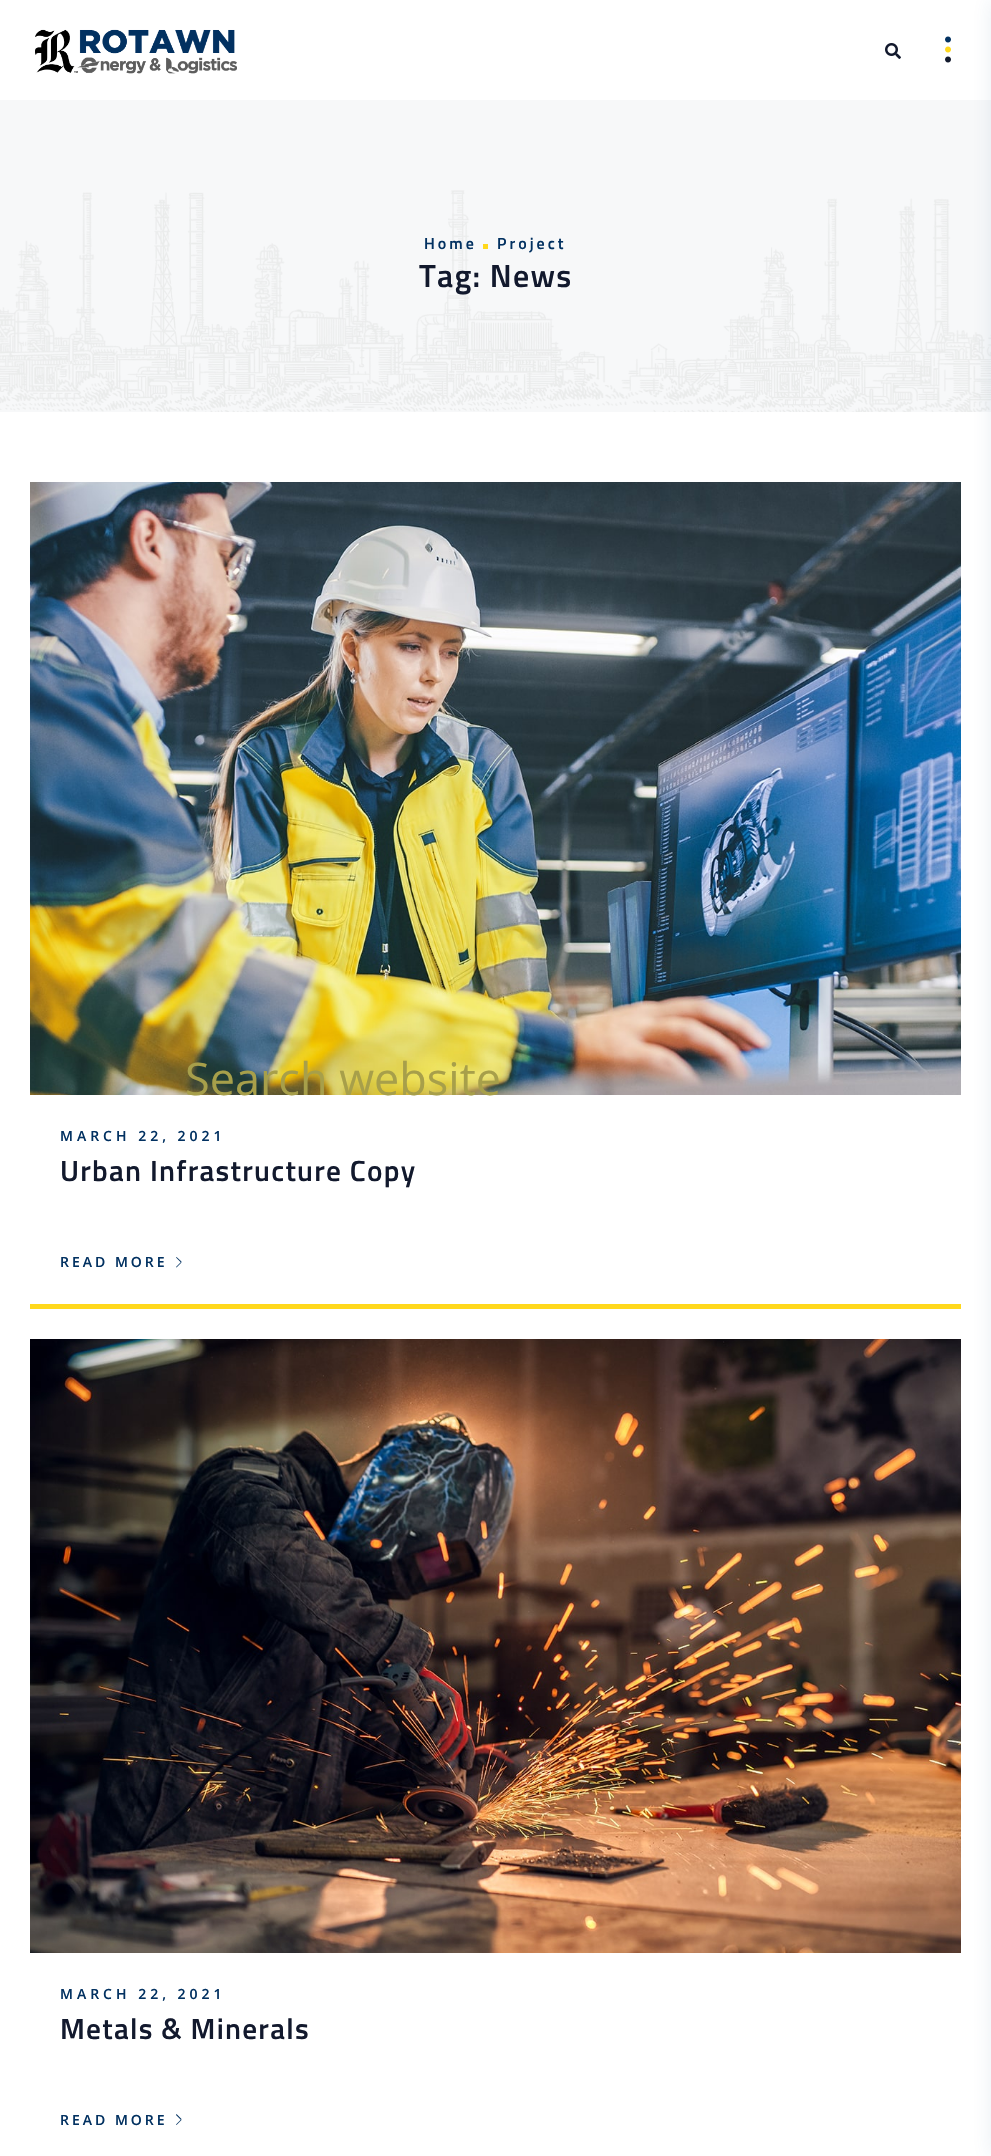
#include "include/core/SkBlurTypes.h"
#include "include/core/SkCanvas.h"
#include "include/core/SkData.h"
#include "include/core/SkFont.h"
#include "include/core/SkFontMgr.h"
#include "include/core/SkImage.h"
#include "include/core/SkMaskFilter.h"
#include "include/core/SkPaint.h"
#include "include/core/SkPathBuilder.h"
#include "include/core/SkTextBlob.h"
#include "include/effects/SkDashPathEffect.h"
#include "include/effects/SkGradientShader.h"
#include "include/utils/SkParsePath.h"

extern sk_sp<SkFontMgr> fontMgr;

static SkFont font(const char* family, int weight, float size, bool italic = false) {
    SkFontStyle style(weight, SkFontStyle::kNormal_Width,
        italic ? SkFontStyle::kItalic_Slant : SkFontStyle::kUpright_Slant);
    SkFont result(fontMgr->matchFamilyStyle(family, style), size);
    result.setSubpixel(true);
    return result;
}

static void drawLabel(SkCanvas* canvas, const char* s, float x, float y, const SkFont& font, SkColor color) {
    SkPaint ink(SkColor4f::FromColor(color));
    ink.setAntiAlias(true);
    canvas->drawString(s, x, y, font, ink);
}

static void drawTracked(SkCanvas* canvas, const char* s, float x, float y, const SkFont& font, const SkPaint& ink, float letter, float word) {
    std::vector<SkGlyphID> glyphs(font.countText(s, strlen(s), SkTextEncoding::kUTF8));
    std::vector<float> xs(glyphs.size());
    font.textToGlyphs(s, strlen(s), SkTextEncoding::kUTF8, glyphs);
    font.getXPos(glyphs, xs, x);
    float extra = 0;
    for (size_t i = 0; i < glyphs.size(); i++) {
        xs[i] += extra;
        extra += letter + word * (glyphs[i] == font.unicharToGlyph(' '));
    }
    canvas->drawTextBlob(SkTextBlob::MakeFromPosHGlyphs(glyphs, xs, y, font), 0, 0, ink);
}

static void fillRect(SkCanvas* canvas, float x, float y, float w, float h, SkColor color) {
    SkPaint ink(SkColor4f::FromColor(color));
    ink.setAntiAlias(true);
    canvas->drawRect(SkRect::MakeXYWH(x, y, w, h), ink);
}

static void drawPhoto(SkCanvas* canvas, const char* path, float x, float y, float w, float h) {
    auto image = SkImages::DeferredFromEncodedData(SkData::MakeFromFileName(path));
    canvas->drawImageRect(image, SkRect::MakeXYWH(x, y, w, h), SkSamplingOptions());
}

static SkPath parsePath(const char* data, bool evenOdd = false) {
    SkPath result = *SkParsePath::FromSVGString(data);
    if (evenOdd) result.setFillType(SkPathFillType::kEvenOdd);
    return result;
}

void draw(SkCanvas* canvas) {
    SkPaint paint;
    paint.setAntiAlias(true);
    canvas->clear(0xFFFFFFFF);
    fillRect(canvas, 0, 100, 991, 312, 0xFFF7F8F9);
    drawPhoto(canvas, "assets/img1.png", 0, 190, 991, 222);
    SkFont font1 = font("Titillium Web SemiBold", 600, 16);
    paint.setColor(0xFF023161);
    drawTracked(canvas, "Home", 424, 249, font1, paint, 3, 0);
    fillRect(canvas, 483, 244, 5, 5, 0xFFFFD81C);
    drawTracked(canvas, "Project", 497, 249, font1, paint, 3, 0);
    SkFont font2 = font("Titillium Web SemiBold", 600, 32);
    paint.setColor(0xFF12192D);
    drawTracked(canvas, "Tag: News", 419, 287, font2, paint, 1.25f, 0);
    drawPhoto(canvas, "assets/img2.png", 35, 29, 202, 45);
    canvas->drawPath(parsePath("M948 62.5C944 62.5 944 56.5 948 56.5C952 56.5 952 62.5 948 62.5Z"), paint);
    paint.setColor(0xFF023161);
    canvas->drawPath(parsePath("M948 42.5C944 42.5 944 36.5 948 36.5C952 36.5 952 42.5 948 42.5Z"), paint);
    paint.setColor(0xFFFFD81C);
    canvas->drawPath(parsePath("M948 52.5C944 52.5 944 46.5 948 46.5C952 46.5 952 52.5 948 52.5Z"), paint);
    drawPhoto(canvas, "assets/img3.png", 885, 43, 16, 16);
    drawPhoto(canvas, "assets/img4.png", 30, 482, 931, 613);
    SkFont font3 = font("Open Sans", 400, 45);
    drawLabel(canvas, "Search website", 185, 1095, font3, 0xFFA79F4A);
    fillRect(canvas, 30, 1304, 931, 5, 0xFFFFD81C);
    SkFont font4 = font("Open Sans", 600, 14);
    paint.setColor(0xFF023161);
    drawTracked(canvas, "MARCH 22, 2021", 60, 1141, font4, paint, 4, 0);
    SkFont font5 = font("Titillium Web SemiBold", 600, 29.25f);
    paint.setColor(0xFF12192D);
    drawTracked(canvas, "Urban Infrastructure Copy", 60, 1181, font5, paint, 1.25f, 0);
    paint.setColor(0xFF023161);
    drawTracked(canvas, "READ MORE", 60, 1267, font4, paint, 3, 0);
    canvas->drawPath(parsePath("M176.5 1257L181.5 1261.5L181 1262.5L176 1257.5Z"), paint);
    canvas->drawPath(parsePath("M176 1267L181 1262L181.5 1262.5L176.5 1267.5Z"), paint);
    drawPhoto(canvas, "assets/img5.png", 30, 1339, 931, 614);
    drawTracked(canvas, "MARCH 22, 2021", 60, 1999, font4, paint, 4, 0);
    paint.setColor(0xFF12192D);
    drawTracked(canvas, "Metals & Minerals", 60, 2039, font5, paint, 1.25f, 0);
    paint.setColor(0xFF023161);
    drawTracked(canvas, "READ MORE", 60, 2125, font4, paint, 3, 0);
    canvas->drawPath(parsePath("M176.5 2114L181.5 2119L181 2120L176 2115Z"), paint);
    canvas->drawPath(parsePath("M176 2124.5L181 2119.5L181.5 2120L176.5 2125Z"), paint);
    paint.setColor(0x1A2C6590);
    paint.setMaskFilter(SkMaskFilter::MakeBlur(kNormal_SkBlurStyle, 10));
    canvas->drawRect(SkRect::MakeXYWH(991, 0, 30, 2156), paint);
    paint.setMaskFilter(nullptr);
}
